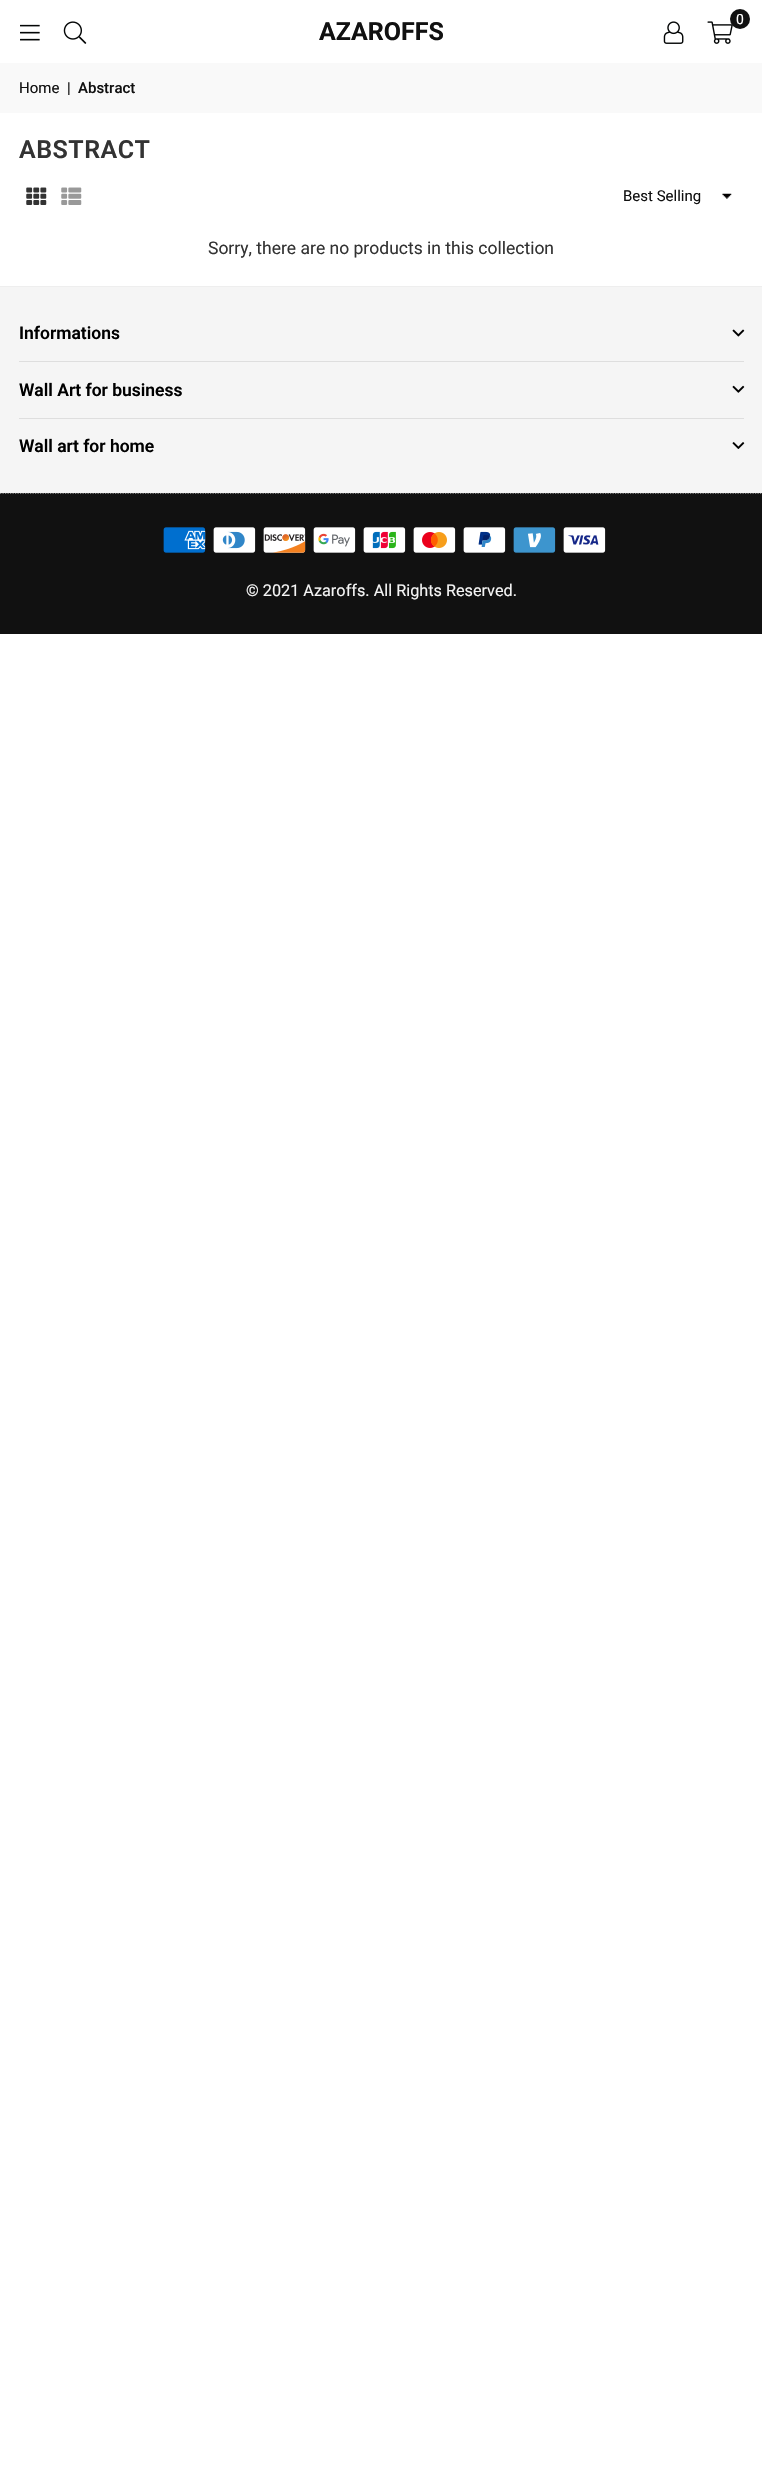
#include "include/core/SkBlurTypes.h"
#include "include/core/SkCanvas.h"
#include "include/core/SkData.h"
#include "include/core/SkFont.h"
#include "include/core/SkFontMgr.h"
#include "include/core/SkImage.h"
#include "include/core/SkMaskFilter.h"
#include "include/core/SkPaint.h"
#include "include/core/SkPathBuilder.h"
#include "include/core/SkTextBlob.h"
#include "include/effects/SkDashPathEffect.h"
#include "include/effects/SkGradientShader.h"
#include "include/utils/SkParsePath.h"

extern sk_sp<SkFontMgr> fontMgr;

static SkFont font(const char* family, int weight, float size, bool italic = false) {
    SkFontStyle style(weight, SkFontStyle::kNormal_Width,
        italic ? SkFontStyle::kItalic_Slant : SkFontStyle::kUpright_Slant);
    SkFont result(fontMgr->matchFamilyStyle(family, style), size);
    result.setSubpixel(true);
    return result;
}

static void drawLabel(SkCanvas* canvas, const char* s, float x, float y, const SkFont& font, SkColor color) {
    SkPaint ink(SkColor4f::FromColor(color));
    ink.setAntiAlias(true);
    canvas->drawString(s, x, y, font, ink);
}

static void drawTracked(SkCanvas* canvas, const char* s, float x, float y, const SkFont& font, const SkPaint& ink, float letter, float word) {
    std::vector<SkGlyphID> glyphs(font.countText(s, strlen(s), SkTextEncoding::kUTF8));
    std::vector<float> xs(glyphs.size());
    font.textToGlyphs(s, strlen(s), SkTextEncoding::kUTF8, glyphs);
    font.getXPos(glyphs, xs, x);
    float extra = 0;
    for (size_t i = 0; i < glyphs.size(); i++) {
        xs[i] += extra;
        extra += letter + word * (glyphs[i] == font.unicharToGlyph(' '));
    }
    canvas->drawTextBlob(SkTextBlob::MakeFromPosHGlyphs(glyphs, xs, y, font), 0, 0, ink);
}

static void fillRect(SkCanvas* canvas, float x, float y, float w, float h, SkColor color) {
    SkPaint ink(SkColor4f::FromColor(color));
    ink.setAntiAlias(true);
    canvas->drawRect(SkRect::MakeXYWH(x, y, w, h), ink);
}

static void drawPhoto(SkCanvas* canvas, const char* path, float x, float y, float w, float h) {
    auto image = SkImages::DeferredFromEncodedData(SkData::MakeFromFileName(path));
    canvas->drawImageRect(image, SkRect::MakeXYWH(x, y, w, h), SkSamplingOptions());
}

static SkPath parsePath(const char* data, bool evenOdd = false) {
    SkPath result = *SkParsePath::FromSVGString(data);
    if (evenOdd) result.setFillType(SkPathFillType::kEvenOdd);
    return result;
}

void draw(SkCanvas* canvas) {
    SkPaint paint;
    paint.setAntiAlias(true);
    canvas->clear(0xFFFFFFFF);
    drawPhoto(canvas, "assets/img1.png", 707, 21, 26, 23);
    paint.setColor(0xFF111111);
    canvas->drawCircle(740, 19, 10, paint);
    SkFont font1 = font("Roboto", 400, 14);
    drawLabel(canvas, "0", 736, 24, font1, 0xFFFFFFFF);
    drawPhoto(canvas, "assets/img2.png", 663, 21, 21, 23);
    drawPhoto(canvas, "assets/img3.png", 20, 24, 20, 17);
    drawPhoto(canvas, "assets/img4.png", 63, 21, 24, 23);
    SkFont font2 = font("Roboto", 700, 25);
    drawLabel(canvas, "AZAROFFS", 319, 40, font2, 0xFF111111);
    fillRect(canvas, 0, 63, 762, 50, 0xFFF9F9F9);
    SkFont font3 = font("Roboto", 400, 15);
    drawLabel(canvas, "Home", 19, 93, font3, 0xFF111111);
    drawLabel(canvas, "|", 67, 93, font3, 0xFF111111);
    SkFont font4 = font("Roboto", 500, 15);
    drawLabel(canvas, "Abstract", 78, 93, font4, 0xFF111111);
    SkFont font5 = font("Roboto", 600, 25);
    paint.setColor(0xFF333333);
    drawTracked(canvas, "ABSTRACT", 19, 158, font5, paint, 0.5f, 0);
    drawPhoto(canvas, "assets/img5.png", 26, 187, 21, 18);
    drawPhoto(canvas, "assets/img6.png", 61, 187, 21, 18);
    drawPhoto(canvas, "assets/img7.png", 722, 193, 10, 6);
    drawLabel(canvas, "Best Selling", 623, 201, font3, 0xFF111111);
    SkFont font6 = font("Roboto", 400, 17.5f);
    drawLabel(canvas, "Sorry, there are no products in this collection", 208, 254, font6, 0xFF333333);
    fillRect(canvas, 0, 287, 762, 206, 0xFFF5F5F5);
    fillRect(canvas, 0, 286, 762, 1, 0xFFEEEEEE);
    SkFont font7 = font("Roboto", 600, 17.5f);
    drawLabel(canvas, "Informations", 19, 339, font7, 0xFF000000);
    drawPhoto(canvas, "assets/img8.png", 732, 329, 13, 8);
    fillRect(canvas, 19, 361, 725, 1, 0xFFDEDEDE);
    drawLabel(canvas, "Wall Art for business", 19, 396, font7, 0xFF000000);
    drawPhoto(canvas, "assets/img9.png", 732, 385, 13, 8);
    fillRect(canvas, 19, 418, 725, 1, 0xFFDEDEDE);
    drawLabel(canvas, "Wall art for home", 19, 452, font7, 0xFF000000);
    drawPhoto(canvas, "assets/img10.png", 732, 442, 13, 7);
    fillRect(canvas, 0, 493, 762, 141, 0xFF111111);
    paint.setStroke(true);
    paint.setStrokeWidth(1.2f);
    paint.setColor(0xFFEEEEEE);
    paint.setPathEffect(SkDashPathEffect::Make({{1.25f, 1.25f}}, 0));
    canvas->drawPath(parsePath("M0 493H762.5"), paint);
    paint.setPathEffect(nullptr);
    drawPhoto(canvas, "assets/img11.png", 163, 527, 43, 26);
    drawPhoto(canvas, "assets/img12.png", 213, 527, 43, 26);
    drawPhoto(canvas, "assets/img13.png", 263, 527, 43, 26);
    drawPhoto(canvas, "assets/img14.png", 313, 527, 43, 26);
    drawPhoto(canvas, "assets/img15.png", 363, 527, 43, 26);
    drawPhoto(canvas, "assets/img16.png", 413, 527, 43, 26);
    drawPhoto(canvas, "assets/img17.png", 463, 527, 43, 26);
    drawPhoto(canvas, "assets/img18.png", 513, 527, 43, 26);
    drawPhoto(canvas, "assets/img19.png", 563, 527, 43, 26);
    SkFont font8 = font("Roboto", 400, 16.25f);
    drawLabel(canvas, "© 2021 Azaroffs. All Rights Reserved.", 246, 596, font8, 0xFFF5F5F5);
}
